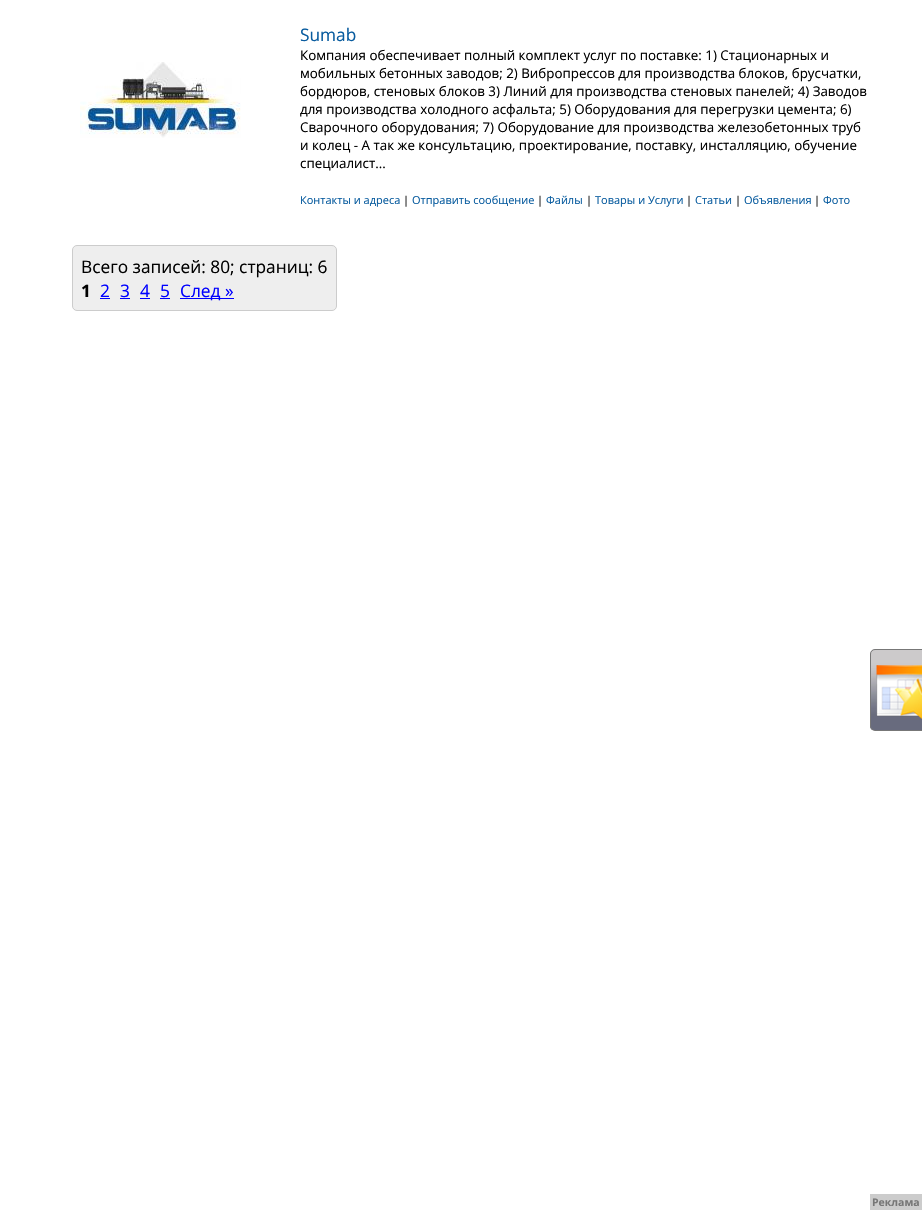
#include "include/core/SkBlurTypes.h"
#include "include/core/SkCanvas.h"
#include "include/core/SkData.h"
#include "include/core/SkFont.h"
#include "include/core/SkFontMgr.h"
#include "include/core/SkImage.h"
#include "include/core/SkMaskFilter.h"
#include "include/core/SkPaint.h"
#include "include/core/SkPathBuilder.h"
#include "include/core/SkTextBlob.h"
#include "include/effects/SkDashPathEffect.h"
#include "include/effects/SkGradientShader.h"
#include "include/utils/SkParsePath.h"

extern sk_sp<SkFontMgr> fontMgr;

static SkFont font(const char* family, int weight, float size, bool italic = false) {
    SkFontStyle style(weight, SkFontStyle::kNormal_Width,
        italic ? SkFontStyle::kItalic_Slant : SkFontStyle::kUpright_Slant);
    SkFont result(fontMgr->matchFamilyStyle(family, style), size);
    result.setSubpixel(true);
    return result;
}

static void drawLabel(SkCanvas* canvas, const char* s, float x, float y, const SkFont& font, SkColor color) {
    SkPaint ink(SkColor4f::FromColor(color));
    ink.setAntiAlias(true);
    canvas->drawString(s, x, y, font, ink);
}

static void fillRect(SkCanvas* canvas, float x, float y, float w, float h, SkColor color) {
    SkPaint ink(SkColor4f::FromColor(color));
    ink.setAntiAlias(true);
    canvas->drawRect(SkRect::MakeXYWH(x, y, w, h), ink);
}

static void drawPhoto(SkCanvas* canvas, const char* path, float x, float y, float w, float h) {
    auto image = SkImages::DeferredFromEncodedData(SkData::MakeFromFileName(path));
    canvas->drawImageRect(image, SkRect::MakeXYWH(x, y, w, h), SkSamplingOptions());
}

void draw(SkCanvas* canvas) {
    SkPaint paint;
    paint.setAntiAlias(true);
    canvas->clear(0xFFFFFFFF);
    drawPhoto(canvas, "assets/img1.png", 80, 62, 161, 76);
    SkFont font1 = font("Open Sans", 400, 17.3f);
    drawLabel(canvas, "Sumab", 300, 41, font1, 0xFF095C9F);
    SkFont font2 = font("Open Sans", 400, 13.35f);
    drawLabel(canvas, "Компания обеспечивает полный комплект услуг по поставке: 1) Cтационарных и", 300, 60, font2, 0xFF000000);
    drawLabel(canvas, "мобильных бетонных заводов; 2) Вибропрессов для производства блоков, брусчатки,", 300, 78, font2, 0xFF000000);
    drawLabel(canvas, "бордюров, стеновых блоков 3) Линий для производства стеновых панелей; 4) Заводов", 300, 96, font2, 0xFF000000);
    drawLabel(canvas, "для производства холодного асфальта; 5) Оборудования для перегрузки цемента; 6)", 300, 114, font2, 0xFF000000);
    drawLabel(canvas, "Cварочного оборудования; 7) Оборудование для производства железобетонных труб", 300, 132, font2, 0xFF000000);
    drawLabel(canvas, "и колец - А так же консультацию, проектирование, поставку, инсталляцию, обучение", 300, 150, font2, 0xFF000000);
    drawLabel(canvas, "специалист...", 300, 168, font2, 0xFF000000);
    SkFont font3 = font("Open Sans", 400, 11);
    drawLabel(canvas, "Контакты и адреса", 300, 204, font3, 0xFF095C9F);
    drawLabel(canvas, "|", 403, 204, font3, 0xFF000000);
    drawLabel(canvas, "Отправить сообщение", 412, 204, font3, 0xFF095C9F);
    drawLabel(canvas, "|", 537, 204, font3, 0xFF000000);
    drawLabel(canvas, "Файлы", 546, 204, font3, 0xFF095C9F);
    drawLabel(canvas, "|", 586, 204, font3, 0xFF000000);
    drawLabel(canvas, "Товары и Услуги", 595, 204, font3, 0xFF095C9F);
    drawLabel(canvas, "|", 686, 204, font3, 0xFF000000);
    drawLabel(canvas, "Статьи", 695, 204, font3, 0xFF095C9F);
    drawLabel(canvas, "|", 735, 204, font3, 0xFF000000);
    drawLabel(canvas, "Объявления", 744, 204, font3, 0xFF095C9F);
    drawLabel(canvas, "|", 814, 204, font3, 0xFF000000);
    drawLabel(canvas, "Фото", 823, 204, font3, 0xFF095C9F);
    paint.setColor(0xFFEEEEEE);
    canvas->drawRoundRect(SkRect::MakeXYWH(72.5f, 245.5f, 264, 65), 4.5f, 4.5f, paint);
    paint.setStroke(true);
    paint.setStrokeWidth(1);
    paint.setColor(0xFFCCCCCC);
    canvas->drawRoundRect(SkRect::MakeXYWH(72.5f, 245.5f, 264, 65), 4.5f, 4.5f, paint);
    drawLabel(canvas, "Всего записей: 80; страниц: 6", 81, 273, font1, 0xFF000000);
    SkFont font4 = font("Open Sans", 700, 17.3f);
    drawLabel(canvas, "1", 81, 297, font4, 0xFF000000);
    drawLabel(canvas, "2", 100, 297, font1, 0xFF0000FF);
    fillRect(canvas, 100, 298, 10, 1, 0xFF0000FF);
    drawLabel(canvas, "3", 120, 297, font1, 0xFF0000FF);
    fillRect(canvas, 120, 298, 10, 1, 0xFF0000FF);
    drawLabel(canvas, "4", 140, 297, font1, 0xFF0000FF);
    fillRect(canvas, 140, 298, 10, 1, 0xFF0000FF);
    drawLabel(canvas, "5", 160, 297, font1, 0xFF0000FF);
    fillRect(canvas, 160, 298, 10, 1, 0xFF0000FF);
    fillRect(canvas, 180, 298, 54, 1, 0xFF0000FF);
    drawLabel(canvas, "След »", 180, 297, font1, 0xFF0000FF);
    drawPhoto(canvas, "assets/img2.png", 870, 649, 52, 81);
    paint.setColor(0xFF777777);
    canvas->drawRoundRect(SkRect::MakeXYWH(870.5f, 649.5f, 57, 81), 4.5f, 4.5f, paint);
    drawPhoto(canvas, "assets/img3.png", 876, 665, 46, 54);
    fillRect(canvas, 870, 1194, 52, 16, 0xFFCCCCCC);
    SkFont font5 = font("Open Sans", 700, 10.5f);
    drawLabel(canvas, "Реклама", 872, 1206, font5, 0xFF777777);
}
